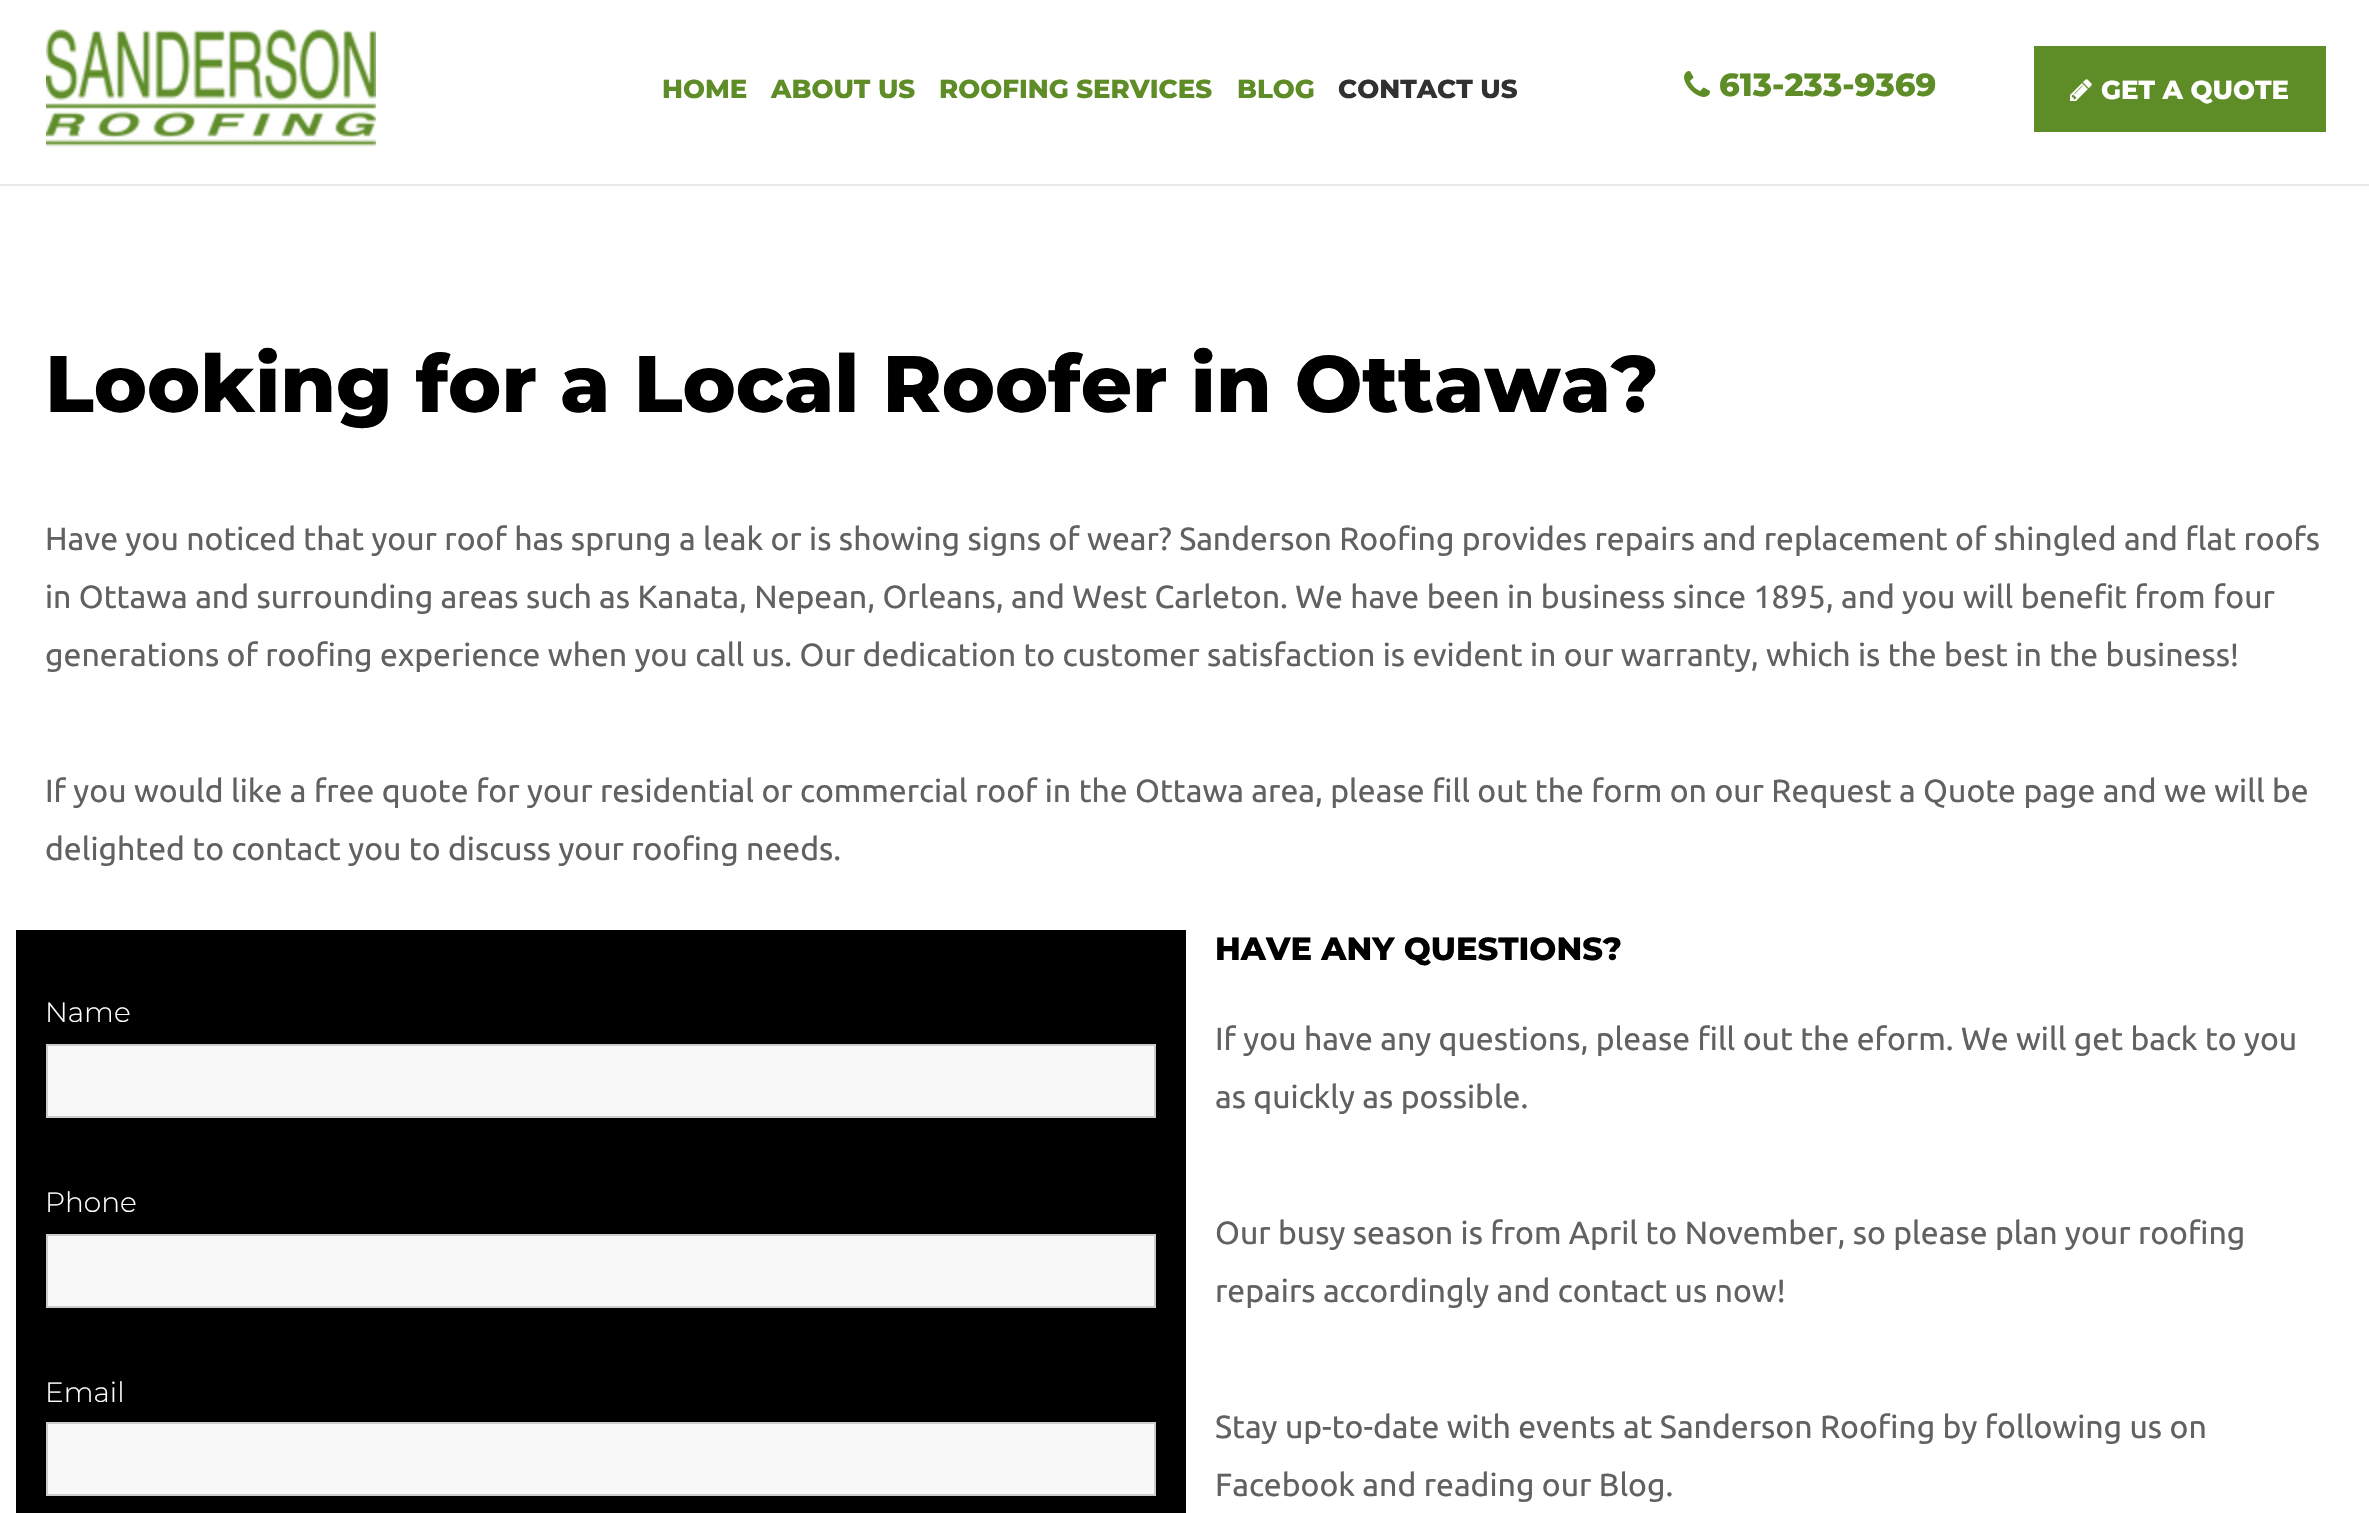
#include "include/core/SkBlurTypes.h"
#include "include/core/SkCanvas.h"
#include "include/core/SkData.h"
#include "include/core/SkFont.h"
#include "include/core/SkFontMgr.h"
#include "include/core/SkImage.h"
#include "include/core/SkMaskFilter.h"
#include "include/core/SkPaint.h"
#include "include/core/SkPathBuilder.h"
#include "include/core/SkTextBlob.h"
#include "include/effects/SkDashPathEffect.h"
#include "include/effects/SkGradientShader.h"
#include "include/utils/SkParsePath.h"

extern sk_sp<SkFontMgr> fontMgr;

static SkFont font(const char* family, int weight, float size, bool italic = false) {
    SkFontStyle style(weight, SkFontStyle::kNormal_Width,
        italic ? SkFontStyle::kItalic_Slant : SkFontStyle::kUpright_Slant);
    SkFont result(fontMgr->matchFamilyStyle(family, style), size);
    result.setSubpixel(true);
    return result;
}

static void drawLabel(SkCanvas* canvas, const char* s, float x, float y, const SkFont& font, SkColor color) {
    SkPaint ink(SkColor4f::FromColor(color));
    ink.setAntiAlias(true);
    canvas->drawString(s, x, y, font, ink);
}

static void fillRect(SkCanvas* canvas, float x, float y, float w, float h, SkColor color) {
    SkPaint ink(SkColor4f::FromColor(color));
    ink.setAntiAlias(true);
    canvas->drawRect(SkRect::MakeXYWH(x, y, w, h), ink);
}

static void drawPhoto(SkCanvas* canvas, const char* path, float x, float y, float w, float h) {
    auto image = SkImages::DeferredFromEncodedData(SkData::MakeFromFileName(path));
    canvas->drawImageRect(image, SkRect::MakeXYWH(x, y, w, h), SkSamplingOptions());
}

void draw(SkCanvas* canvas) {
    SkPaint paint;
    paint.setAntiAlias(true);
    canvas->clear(0xFFFFFFFF);
    drawPhoto(canvas, "assets/img1.png", 46, 29, 330, 118);
    SkFont font1 = font("Montserrat", 800, 26);
    drawLabel(canvas, "HOME", 662, 98, font1, 0xFF5E8C27);
    drawLabel(canvas, "ABOUT US", 771, 98, font1, 0xFF5E8C27);
    drawLabel(canvas, "ROOFING SERVICES", 939, 98, font1, 0xFF5E8C27);
    drawLabel(canvas, "BLOG", 1237, 98, font1, 0xFF5E8C27);
    drawLabel(canvas, "CONTACT US", 1338, 98, font1, 0xFF313131);
    drawPhoto(canvas, "assets/img2.png", 1684, 71, 26, 26);
    SkFont font2 = font("Montserrat", 800, 32);
    drawLabel(canvas, "613-233-9369", 1719, 96, font2, 0xFF5E8C27);
    fillRect(canvas, 2034, 46, 292, 86, 0xFF5E8C27);
    drawPhoto(canvas, "assets/img3.png", 2070, 79, 22, 22);
    drawLabel(canvas, "GET A QUOTE", 2101, 99, font1, 0xFFFFFFFF);
    fillRect(canvas, 0, 184, 2369, 2, 0xFFEAEAEA);
    SkFont font3 = font("Montserrat", 800, 80);
    drawLabel(canvas, "Looking for a Local Roofer in Ottawa?", 45, 412, font3, 0xFF000000);
    SkFont font4 = font("Ubuntu", 400, 32);
    drawLabel(canvas, "Have you noticed that your roof has sprung a leak or is showing signs of wear? Sanderson Roofing provides repairs and replacement of shingled and flat roofs", 45, 550, font4, 0xFF616161);
    drawLabel(canvas, "in Ottawa and surrounding areas such as Kanata, Nepean, Orleans, and West Carleton. We have been in business since 1895, and you will benefit from four", 45, 608, font4, 0xFF616161);
    drawLabel(canvas, "generations of roofing experience when you call us. Our dedication to customer satisfaction is evident in our warranty, which is the best in the business!", 45, 666, font4, 0xFF616161);
    drawLabel(canvas, "If you would like a free quote for your residential or commercial roof in the Ottawa area, please fill out the form on our Request a Quote page and we will be", 45, 802, font4, 0xFF616161);
    drawLabel(canvas, "delighted to contact you to discuss your roofing needs.", 45, 860, font4, 0xFF616161);
    fillRect(canvas, 16, 930, 1170, 583, 0xFF000000);
    SkFont font5 = font("Montserrat", 300, 28);
    drawLabel(canvas, "Name", 45, 1022, font5, 0xFFFFFFFF);
    paint.setColor(0xFFF8F8F8);
    canvas->drawRect(SkRect::MakeXYWH(47, 1045, 1108, 72), paint);
    paint.setStroke(true);
    paint.setStrokeWidth(2);
    paint.setColor(0xFFCCCCCC);
    canvas->drawRect(SkRect::MakeXYWH(47, 1045, 1108, 72), paint);
    drawLabel(canvas, "Phone", 45, 1212, font5, 0xFFFFFFFF);
    paint.setStroke(false);
    paint.setColor(0xFFF8F8F8);
    canvas->drawRect(SkRect::MakeXYWH(47, 1235, 1108, 72), paint);
    paint.setStroke(true);
    paint.setColor(0xFFCCCCCC);
    canvas->drawRect(SkRect::MakeXYWH(47, 1235, 1108, 72), paint);
    drawLabel(canvas, "Email", 45, 1402, font5, 0xFFFFFFFF);
    paint.setStroke(false);
    paint.setColor(0xFFF8F8F8);
    canvas->drawRect(SkRect::MakeXYWH(47, 1423, 1108, 72), paint);
    paint.setStroke(true);
    paint.setColor(0xFFCCCCCC);
    canvas->drawRect(SkRect::MakeXYWH(47, 1423, 1108, 72), paint);
    drawLabel(canvas, "HAVE ANY QUESTIONS?", 1215, 960, font2, 0xFF000000);
    drawLabel(canvas, "If you have any questions, please fill out the eform. We will get back to you", 1215, 1050, font4, 0xFF616161);
    drawLabel(canvas, "as quickly as possible.", 1215, 1108, font4, 0xFF616161);
    drawLabel(canvas, "Our busy season is from April to November, so please plan your roofing", 1215, 1244, font4, 0xFF616161);
    drawLabel(canvas, "repairs accordingly and contact us now!", 1215, 1302, font4, 0xFF616161);
    drawLabel(canvas, "Stay up-to-date with events at Sanderson Roofing by following us on", 1215, 1438, font4, 0xFF616161);
    drawLabel(canvas, "Facebook and reading our Blog.", 1215, 1496, font4, 0xFF616161);
}
